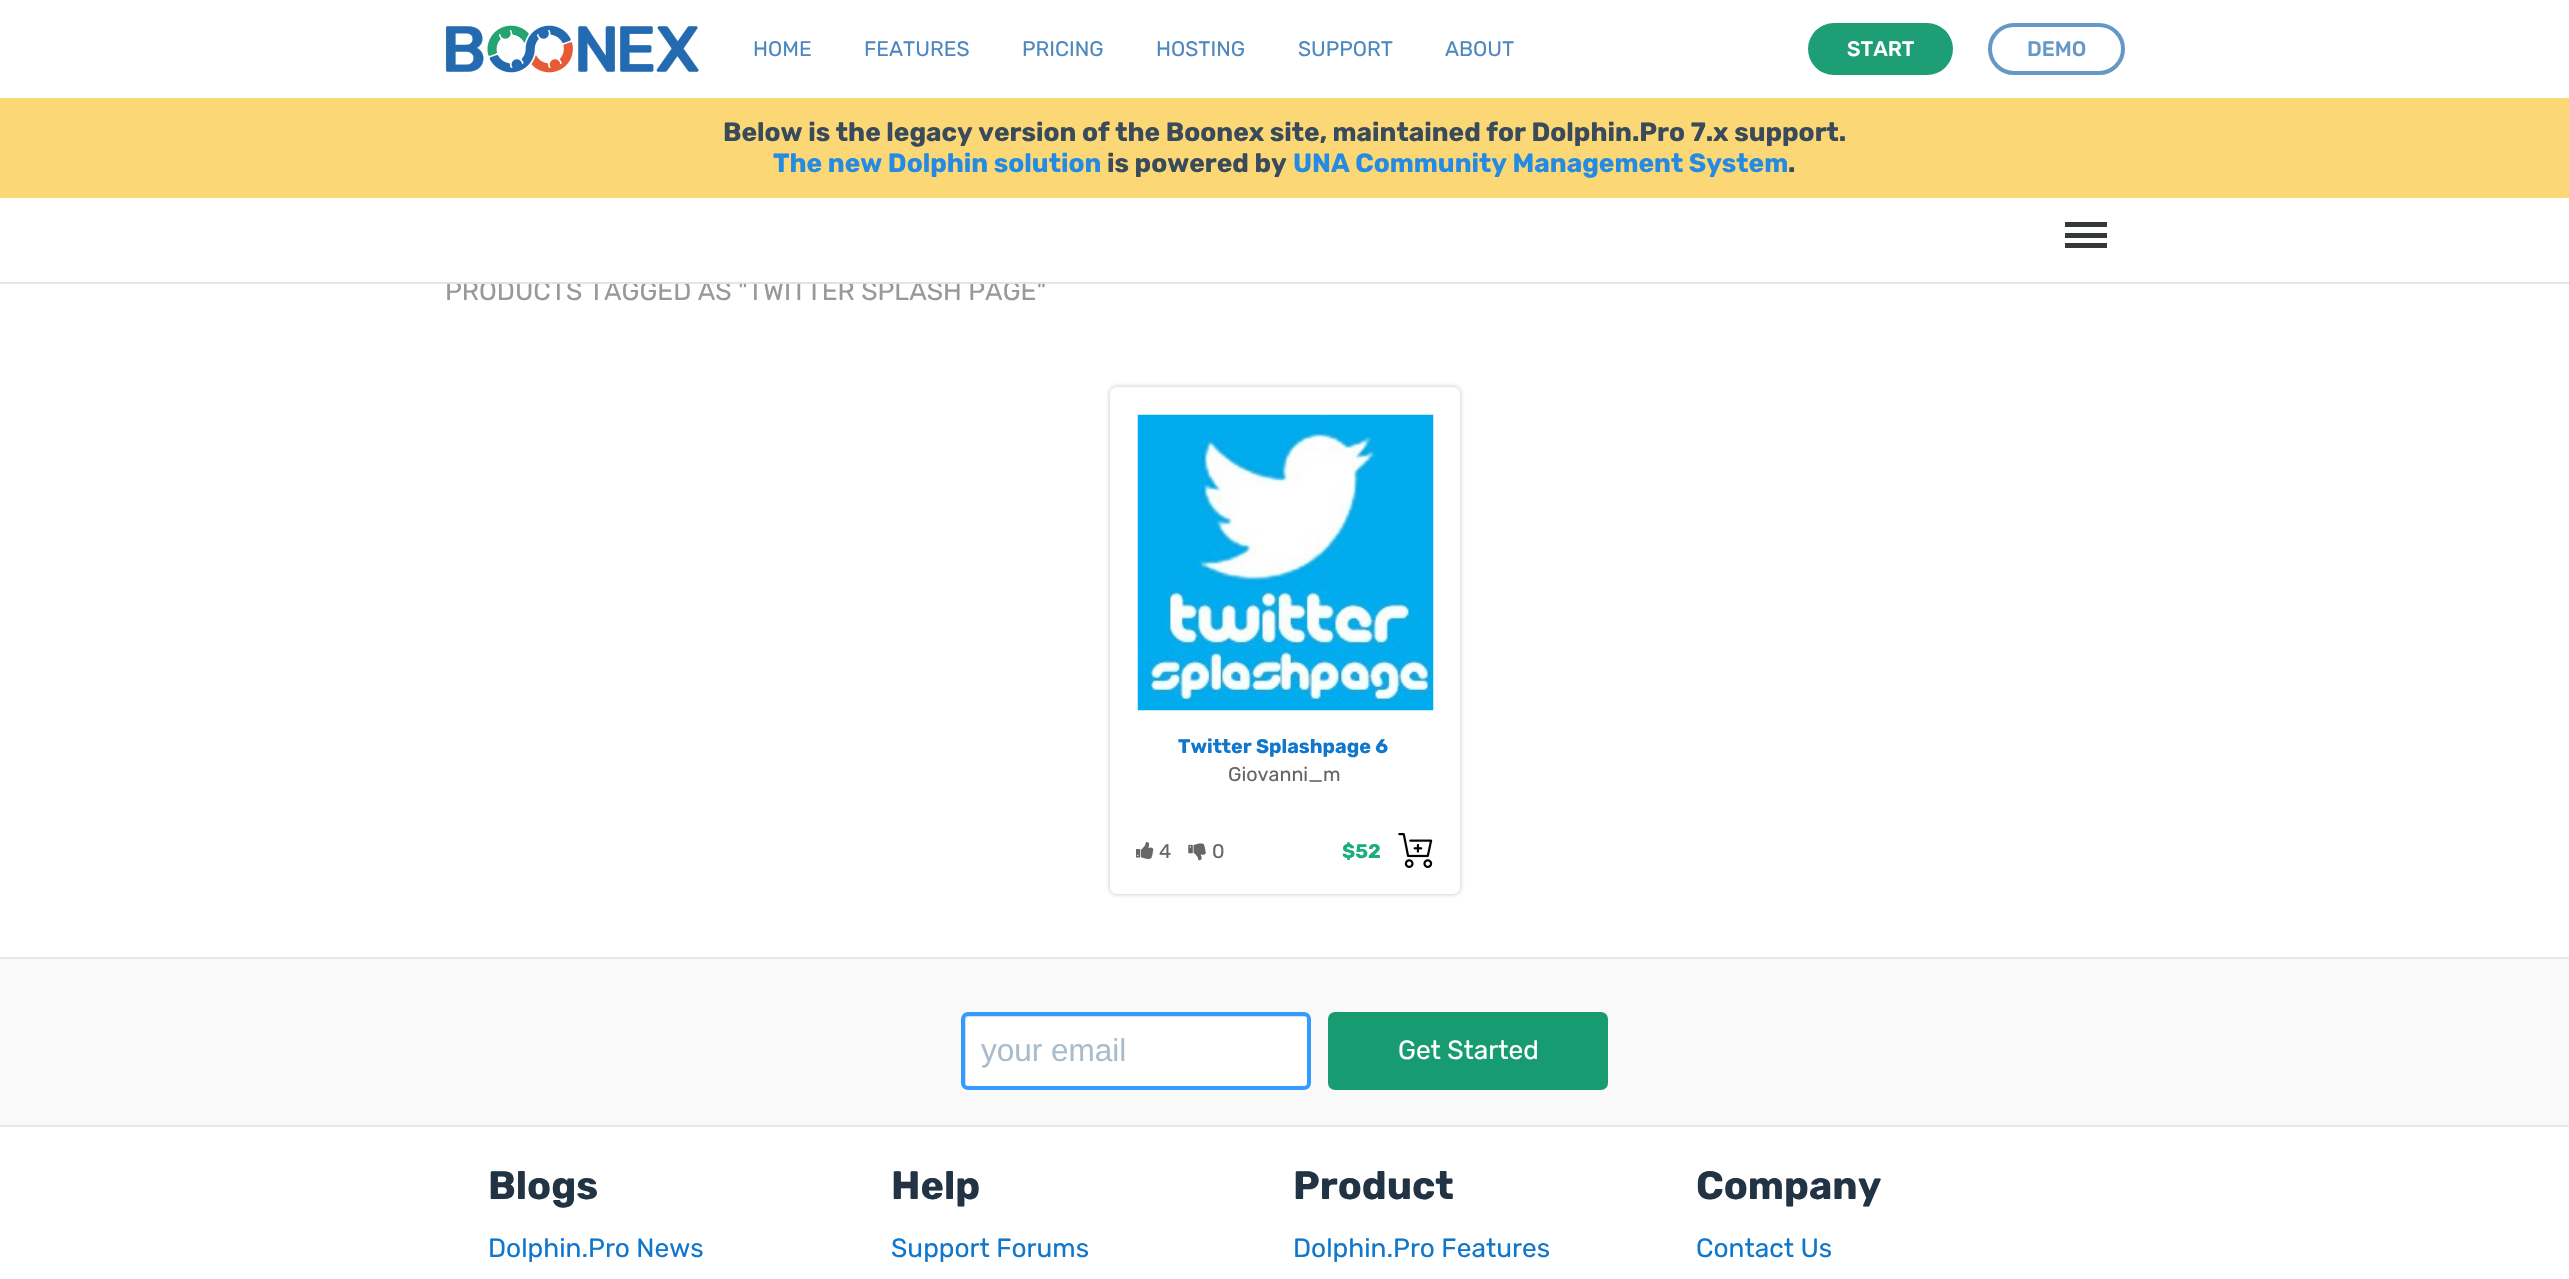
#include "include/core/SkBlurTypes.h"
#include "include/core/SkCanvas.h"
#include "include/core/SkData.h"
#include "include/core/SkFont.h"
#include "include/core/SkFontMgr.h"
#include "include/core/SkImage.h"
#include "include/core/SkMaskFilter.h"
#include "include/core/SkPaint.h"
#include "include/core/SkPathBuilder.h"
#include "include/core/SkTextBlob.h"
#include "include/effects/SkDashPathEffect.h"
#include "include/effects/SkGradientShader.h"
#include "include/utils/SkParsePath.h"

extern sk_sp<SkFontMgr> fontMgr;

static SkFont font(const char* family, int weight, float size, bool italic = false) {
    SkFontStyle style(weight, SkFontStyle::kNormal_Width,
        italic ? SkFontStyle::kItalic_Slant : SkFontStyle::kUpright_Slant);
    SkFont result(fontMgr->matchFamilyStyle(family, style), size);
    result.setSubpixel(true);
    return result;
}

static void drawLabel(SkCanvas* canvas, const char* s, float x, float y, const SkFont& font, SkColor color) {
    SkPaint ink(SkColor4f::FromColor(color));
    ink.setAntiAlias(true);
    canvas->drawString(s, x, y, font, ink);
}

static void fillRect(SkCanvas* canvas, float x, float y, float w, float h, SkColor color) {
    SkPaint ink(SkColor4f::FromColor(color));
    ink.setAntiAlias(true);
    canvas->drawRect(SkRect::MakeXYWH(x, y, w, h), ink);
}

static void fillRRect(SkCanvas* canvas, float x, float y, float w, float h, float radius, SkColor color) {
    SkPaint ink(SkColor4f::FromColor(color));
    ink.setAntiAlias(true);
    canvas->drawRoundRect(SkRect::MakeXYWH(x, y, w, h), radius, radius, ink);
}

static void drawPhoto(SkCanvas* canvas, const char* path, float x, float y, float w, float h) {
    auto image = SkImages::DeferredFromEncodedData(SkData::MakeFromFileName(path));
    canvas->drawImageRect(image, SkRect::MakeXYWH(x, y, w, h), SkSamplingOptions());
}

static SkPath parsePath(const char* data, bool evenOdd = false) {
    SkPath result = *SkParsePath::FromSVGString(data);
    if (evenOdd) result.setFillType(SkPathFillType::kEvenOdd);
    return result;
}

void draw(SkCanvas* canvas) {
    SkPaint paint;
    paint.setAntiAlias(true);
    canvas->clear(0xFFFFFFFF);
    SkFont font1 = font("Rubik", 400, 26.25f);
    drawLabel(canvas, "PRODUCTS TAGGED AS \"TWITTER SPLASH PAGE\"", 445, 300, font1, 0xFF999999);
    fillRect(canvas, 446, 281, 599, 3, 0xF7FFFFFF);
    fillRect(canvas, 0, 282, 2569, 2, 0x1A000000);
    drawPhoto(canvas, "assets/img1.png", 445, 25, 254, 48);
    SkFont font2 = font("Rubik", 400, 21);
    drawLabel(canvas, "HOME", 753, 56, font2, 0xFF4F88BF);
    drawLabel(canvas, "FEATURES", 864, 56, font2, 0xFF4F88BF);
    drawLabel(canvas, "PRICING", 1022, 56, font2, 0xFF4F88BF);
    drawLabel(canvas, "HOSTING", 1156, 56, font2, 0xFF4F88BF);
    drawLabel(canvas, "SUPPORT", 1298, 56, font2, 0xFF4F88BF);
    drawLabel(canvas, "ABOUT", 1445, 56, font2, 0xFF4F88BF);
    fillRRect(canvas, 1808, 23, 145, 52, 26, 0xFF1E9E75);
    SkFont font3 = font("Rubik", 500, 21);
    drawLabel(canvas, "START", 1847, 56, font3, 0xFFFFFFFF);
    paint.setStroke(true);
    paint.setStrokeWidth(4);
    paint.setColor(0xFF6597C7);
    canvas->drawRoundRect(SkRect::MakeXYWH(1990, 25, 133, 48), 24, 24, paint);
    drawLabel(canvas, "DEMO", 2027, 56, font3, 0xFF6597C7);
    fillRect(canvas, 0, 98, 2569, 100, 0xF7FCD671);
    SkFont font4 = font("Rubik", 700, 26.25f);
    drawLabel(canvas, "Below is the legacy version of the Boonex site, maintained for Dolphin.Pro 7.x support.", 723, 141, font4, 0xFF394A5A);
    drawLabel(canvas, "The new Dolphin solution", 773, 172, font4, 0xFF258AE2);
    drawLabel(canvas, "is powered by", 1107, 172, font4, 0xFF394A5A);
    drawLabel(canvas, "UNA Community Management System", 1293, 172, font4, 0xFF258AE2);
    drawLabel(canvas, ".", 1788, 172, font4, 0xFF394A5A);
    fillRect(canvas, 2065, 233, 42, 5, 0xFF343839);
    fillRect(canvas, 2065, 222, 42, 5, 0xFF343839);
    fillRect(canvas, 2065, 243, 42, 5, 0xFF343839);
    paint.setStroke(false);
    paint.setColor(0x4D333333);
    paint.setMaskFilter(SkMaskFilter::MakeBlur(kNormal_SkBlurStyle, 2.5f));
    canvas->drawRoundRect(SkRect::MakeXYWH(1110, 387, 350, 507), 7, 7, paint);
    paint.setMaskFilter(nullptr);
    fillRRect(canvas, 1110, 387, 350, 507, 7, 0xFFFFFFFF);
    drawPhoto(canvas, "assets/img2.png", 1137, 414, 297, 297);
    SkFont font5 = font("Rubik", 700, 19.75f);
    drawLabel(canvas, "Twitter Splashpage 6", 1178, 753, font5, 0xFF1177CC);
    SkFont font6 = font("Rubik", 400, 19.75f);
    drawLabel(canvas, "Giovanni_m", 1228, 781, font6, 0xFF666666);
    drawPhoto(canvas, "assets/img3.png", 1136, 842, 18, 17);
    drawLabel(canvas, "4", 1159, 858, font6, 0xFF666666);
    drawPhoto(canvas, "assets/img4.png", 1188, 843, 18, 18);
    drawLabel(canvas, "0", 1212, 858, font6, 0xFF666666);
    drawLabel(canvas, "$52", 1342, 858, font5, 0xFF1AAD7E);
    drawPhoto(canvas, "assets/img5.png", 1398, 833, 35, 35);
    fillRect(canvas, 0, 957, 2569, 2, 0xFFE8E8E8);
    fillRect(canvas, 0, 959, 2569, 166, 0xFFF9F9F9);
    fillRect(canvas, 0, 1125, 2569, 2, 0xFFE8E8E8);
    fillRRect(canvas, 961, 1012, 350, 78, 7, 0xFFFFFFFF);
    paint.setColor(0xFFDDDDDD);
    canvas->drawPath(parsePath("M970 1017H1307C1306 1016 1305 1015 1303 1015H968C966 1015 964 1017 964 1019V1083C964 1085 965 1086 967 1087L966 1085V1020C966 1018 968 1017 970 1017Z"), paint);
    paint.setStroke(true);
    paint.setColor(0xFF339AFF);
    canvas->drawRoundRect(SkRect::MakeXYWH(963, 1014, 346, 74), 5, 5, paint);
    SkFont font7 = font("Liberation Sans", 400, 31.5f);
    drawLabel(canvas, "your email", 981, 1061, font7, 0xFFAABBCC);
    fillRRect(canvas, 1328, 1012, 280, 78, 7, 0xFF179B71);
    drawLabel(canvas, "Get Started", 1398, 1059, font1, 0xFFFFFFFF);
    SkFont font8 = font("Rubik", 700, 39.5f);
    drawLabel(canvas, "Blogs", 488, 1199, font8, 0xFF223344);
    drawLabel(canvas, "Dolphin.Pro News", 488, 1257, font1, 0xFF1177CC);
    drawLabel(canvas, "Help", 891, 1199, font8, 0xFF223344);
    drawLabel(canvas, "Support Forums", 891, 1257, font1, 0xFF1177CC);
    drawLabel(canvas, "Product", 1293, 1199, font8, 0xFF223344);
    drawLabel(canvas, "Dolphin.Pro Features", 1293, 1257, font1, 0xFF1177CC);
    drawLabel(canvas, "Company", 1696, 1199, font8, 0xFF223344);
    drawLabel(canvas, "Contact Us", 1696, 1257, font1, 0xFF1177CC);
}
